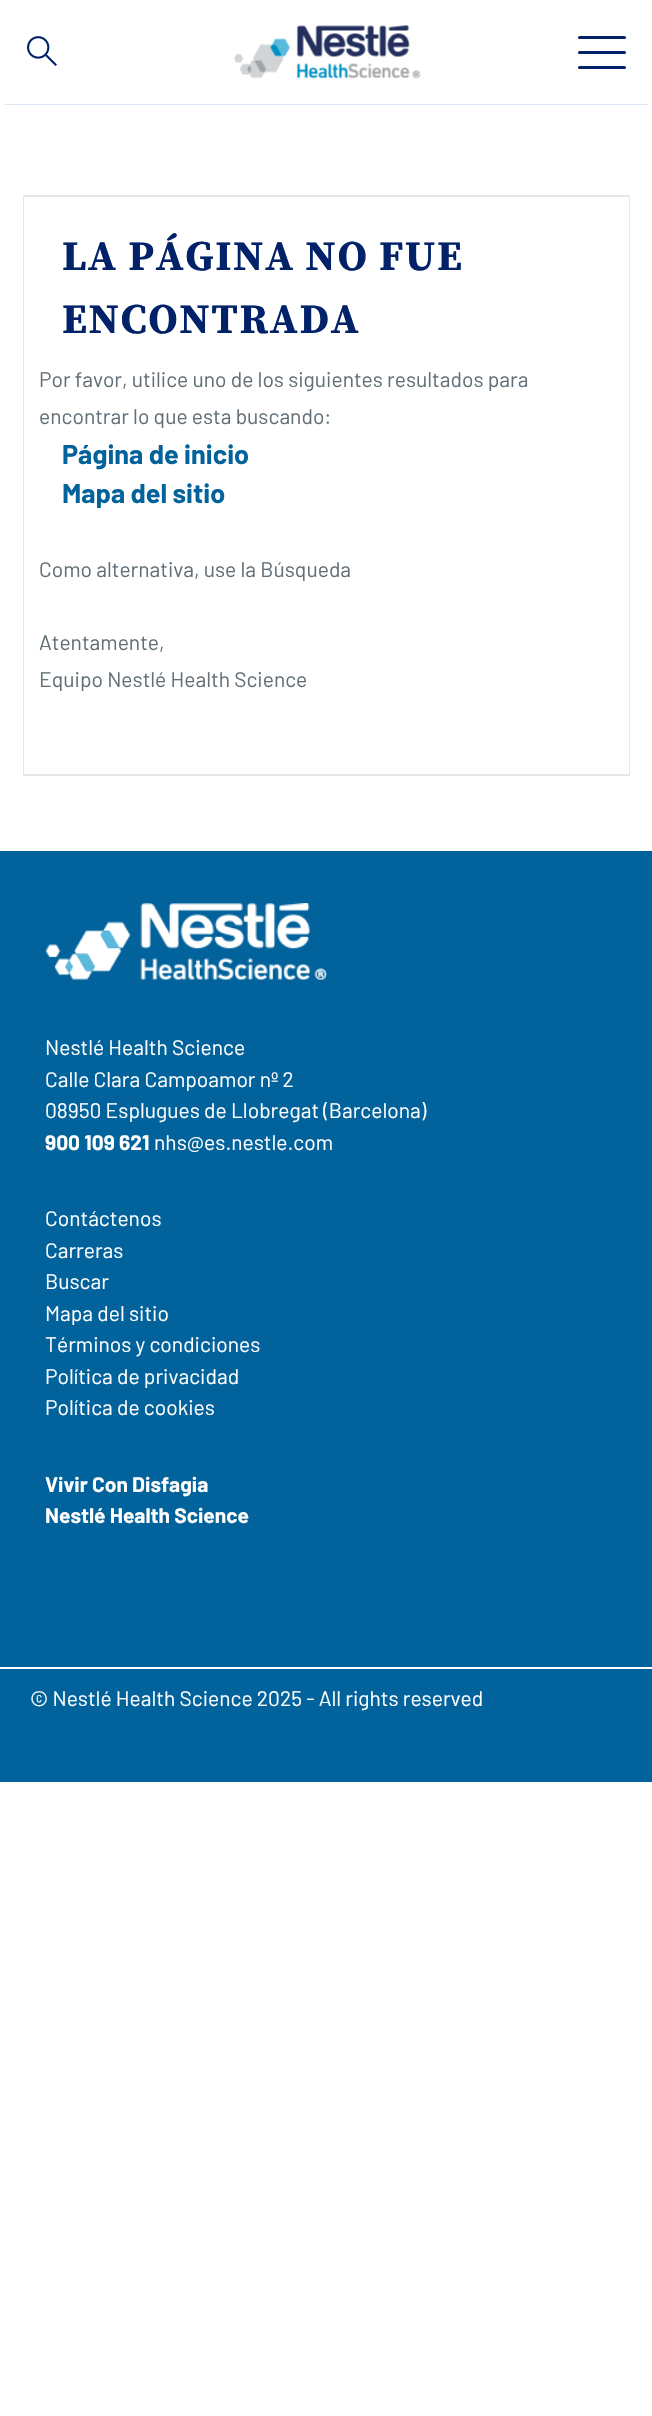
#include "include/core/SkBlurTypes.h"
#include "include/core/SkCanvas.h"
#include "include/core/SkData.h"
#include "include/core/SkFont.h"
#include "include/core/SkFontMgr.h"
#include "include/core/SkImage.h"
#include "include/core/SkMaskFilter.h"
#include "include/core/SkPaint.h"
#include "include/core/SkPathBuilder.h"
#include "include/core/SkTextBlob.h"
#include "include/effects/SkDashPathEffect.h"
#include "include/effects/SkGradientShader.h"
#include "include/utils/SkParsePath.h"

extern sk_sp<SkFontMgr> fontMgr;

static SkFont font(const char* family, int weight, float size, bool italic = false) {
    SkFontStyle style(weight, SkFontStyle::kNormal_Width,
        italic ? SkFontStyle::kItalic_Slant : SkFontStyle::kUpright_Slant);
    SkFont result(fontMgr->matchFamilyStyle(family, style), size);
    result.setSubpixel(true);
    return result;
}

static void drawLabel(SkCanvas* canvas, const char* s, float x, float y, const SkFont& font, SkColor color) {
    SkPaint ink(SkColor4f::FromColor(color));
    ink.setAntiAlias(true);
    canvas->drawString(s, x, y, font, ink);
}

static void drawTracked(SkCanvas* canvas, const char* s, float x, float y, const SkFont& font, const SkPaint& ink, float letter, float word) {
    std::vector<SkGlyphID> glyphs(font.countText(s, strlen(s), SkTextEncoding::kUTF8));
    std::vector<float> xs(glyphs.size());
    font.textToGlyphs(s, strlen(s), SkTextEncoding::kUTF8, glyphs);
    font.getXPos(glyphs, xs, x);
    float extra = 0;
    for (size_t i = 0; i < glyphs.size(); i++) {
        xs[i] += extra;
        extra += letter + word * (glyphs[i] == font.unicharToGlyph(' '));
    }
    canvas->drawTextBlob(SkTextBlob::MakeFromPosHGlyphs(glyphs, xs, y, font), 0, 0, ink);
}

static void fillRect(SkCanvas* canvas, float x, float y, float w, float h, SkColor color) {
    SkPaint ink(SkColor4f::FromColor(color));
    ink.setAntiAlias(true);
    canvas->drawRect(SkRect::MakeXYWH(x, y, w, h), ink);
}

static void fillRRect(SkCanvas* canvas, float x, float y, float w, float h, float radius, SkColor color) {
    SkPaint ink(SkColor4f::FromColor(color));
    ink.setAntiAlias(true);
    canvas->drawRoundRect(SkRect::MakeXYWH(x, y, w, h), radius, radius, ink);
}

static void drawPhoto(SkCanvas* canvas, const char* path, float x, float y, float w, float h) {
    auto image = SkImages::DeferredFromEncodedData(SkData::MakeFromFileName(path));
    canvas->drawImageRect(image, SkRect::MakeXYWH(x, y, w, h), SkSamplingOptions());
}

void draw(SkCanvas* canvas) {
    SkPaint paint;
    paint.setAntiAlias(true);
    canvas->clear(0xFFFFFFFF);
    fillRect(canvas, 5, 104, 643, 1, 0xFFDAE6F4);
    drawPhoto(canvas, "assets/img1.png", 27, 36, 30, 30);
    drawPhoto(canvas, "assets/img2.png", 234, 25, 187, 54);
    fillRRect(canvas, 578, 36, 48, 3, 1.5f, 0xFF012169);
    fillRRect(canvas, 578, 51, 48, 3, 1.5f, 0xFF012169);
    fillRRect(canvas, 578, 66, 48, 3, 1.5f, 0xFF012169);
    paint.setStroke(true);
    paint.setStrokeWidth(2);
    paint.setColor(0xFFE6E6E6);
    canvas->drawRect(SkRect::MakeXYWH(24, 196, 605, 579), paint);
    fillRect(canvas, 24, 197, 605, 577, 0xFFFFFFFF);
    SkFont font1 = font("Source Serif Pro", 700, 42);
    paint.setStroke(false);
    paint.setColor(0xFF012169);
    drawTracked(canvas, "LA PÁGINA NO FUE", 62, 270, font1, paint, 1.5f, 0);
    drawTracked(canvas, "ENCONTRADA", 62, 333, font1, paint, 1.5f, 0);
    SkFont font2 = font("Barlow", 400, 21);
    drawLabel(canvas, "Por favor, utilice uno de los siguientes resultados para", 39, 387, font2, 0xFF636F77);
    drawLabel(canvas, "encontrar lo que esta buscando:", 39, 424, font2, 0xFF636F77);
    SkFont font3 = font("Barlow", 700, 27);
    drawLabel(canvas, "Página de inicio", 62, 464, font3, 0xFF02629B);
    drawLabel(canvas, "Mapa del sitio", 62, 503, font3, 0xFF02629B);
    drawLabel(canvas, "Como alternativa, use la Búsqueda", 39, 577, font2, 0xFF636F77);
    drawLabel(canvas, "Atentamente,", 39, 650, font2, 0xFF636F77);
    drawLabel(canvas, "Equipo Nestlé Health Science", 39, 687, font2, 0xFF636F77);
    fillRect(canvas, 0, 851, 652, 931, 0xFF02629B);
    drawPhoto(canvas, "assets/img3.png", 45, 903, 282, 77);
    drawLabel(canvas, "Nestlé Health Science", 45, 1055, font2, 0xFFFFFFFF);
    drawLabel(canvas, "Calle Clara Campoamor nº 2", 45, 1087, font2, 0xFFFFFFFF);
    drawLabel(canvas, "08950 Esplugues de Llobregat (Barcelona)", 45, 1118, font2, 0xFFFFFFFF);
    SkFont font4 = font("Barlow", 700, 21);
    drawLabel(canvas, "900 109 621", 45, 1150, font4, 0xFFFFFFFF);
    drawLabel(canvas, "nhs@es.nestle.com", 154, 1150, font2, 0xFFFFFFFF);
    drawLabel(canvas, "Contáctenos", 45, 1226, font2, 0xFFFFFFFF);
    drawLabel(canvas, "Carreras", 45, 1258, font2, 0xFFFFFFFF);
    drawLabel(canvas, "Buscar", 45, 1289, font2, 0xFFFFFFFF);
    drawLabel(canvas, "Mapa del sitio", 45, 1321, font2, 0xFFFFFFFF);
    drawLabel(canvas, "Términos y condiciones", 45, 1352, font2, 0xFFFFFFFF);
    drawLabel(canvas, "Política de privacidad", 45, 1384, font2, 0xFFFFFFFF);
    drawLabel(canvas, "Política de cookies", 45, 1415, font2, 0xFFFFFFFF);
    drawLabel(canvas, "Vivir Con Disfagia", 45, 1492, font4, 0xFFFFFFFF);
    drawLabel(canvas, "Nestlé Health Science", 45, 1523, font4, 0xFFFFFFFF);
    fillRect(canvas, 0, 1667, 652, 2, 0xFFFFFFFF);
    drawLabel(canvas, "© Nestlé Health Science 2025 - All rights reserved", 30, 1706, font2, 0xFFFFFFFF);
}
